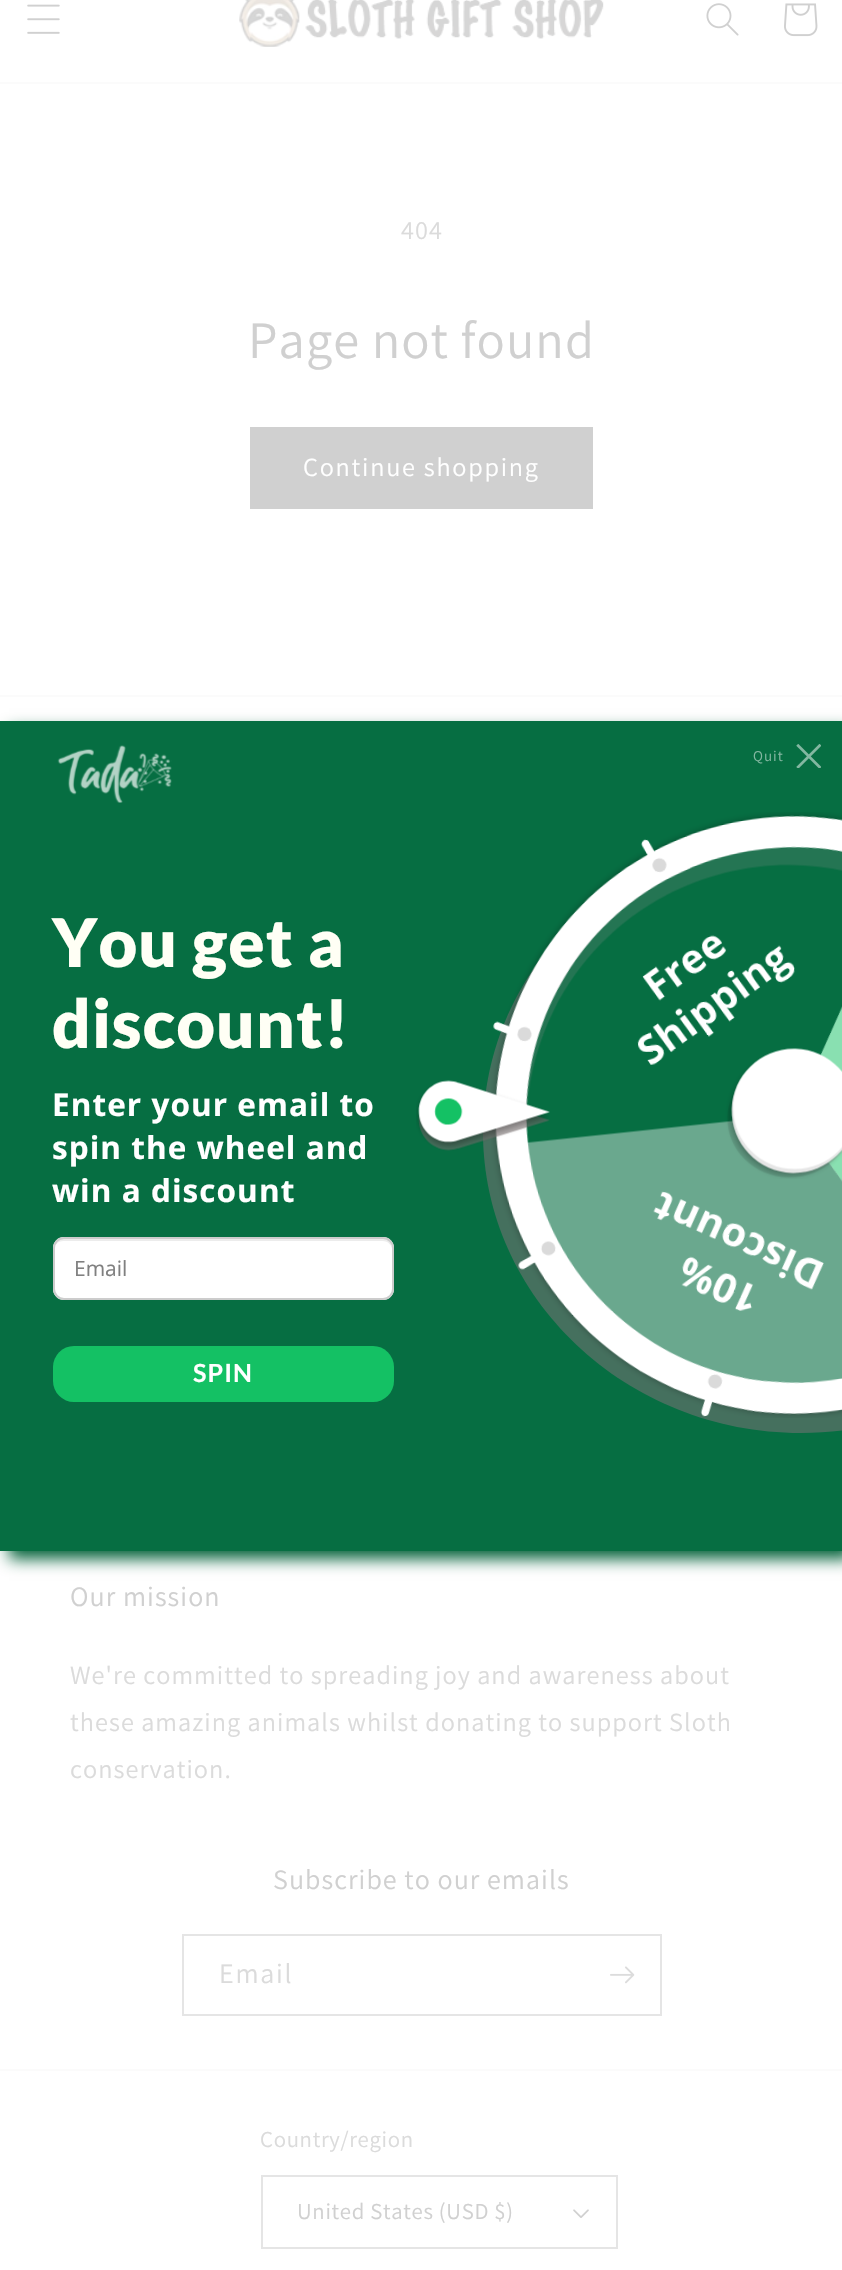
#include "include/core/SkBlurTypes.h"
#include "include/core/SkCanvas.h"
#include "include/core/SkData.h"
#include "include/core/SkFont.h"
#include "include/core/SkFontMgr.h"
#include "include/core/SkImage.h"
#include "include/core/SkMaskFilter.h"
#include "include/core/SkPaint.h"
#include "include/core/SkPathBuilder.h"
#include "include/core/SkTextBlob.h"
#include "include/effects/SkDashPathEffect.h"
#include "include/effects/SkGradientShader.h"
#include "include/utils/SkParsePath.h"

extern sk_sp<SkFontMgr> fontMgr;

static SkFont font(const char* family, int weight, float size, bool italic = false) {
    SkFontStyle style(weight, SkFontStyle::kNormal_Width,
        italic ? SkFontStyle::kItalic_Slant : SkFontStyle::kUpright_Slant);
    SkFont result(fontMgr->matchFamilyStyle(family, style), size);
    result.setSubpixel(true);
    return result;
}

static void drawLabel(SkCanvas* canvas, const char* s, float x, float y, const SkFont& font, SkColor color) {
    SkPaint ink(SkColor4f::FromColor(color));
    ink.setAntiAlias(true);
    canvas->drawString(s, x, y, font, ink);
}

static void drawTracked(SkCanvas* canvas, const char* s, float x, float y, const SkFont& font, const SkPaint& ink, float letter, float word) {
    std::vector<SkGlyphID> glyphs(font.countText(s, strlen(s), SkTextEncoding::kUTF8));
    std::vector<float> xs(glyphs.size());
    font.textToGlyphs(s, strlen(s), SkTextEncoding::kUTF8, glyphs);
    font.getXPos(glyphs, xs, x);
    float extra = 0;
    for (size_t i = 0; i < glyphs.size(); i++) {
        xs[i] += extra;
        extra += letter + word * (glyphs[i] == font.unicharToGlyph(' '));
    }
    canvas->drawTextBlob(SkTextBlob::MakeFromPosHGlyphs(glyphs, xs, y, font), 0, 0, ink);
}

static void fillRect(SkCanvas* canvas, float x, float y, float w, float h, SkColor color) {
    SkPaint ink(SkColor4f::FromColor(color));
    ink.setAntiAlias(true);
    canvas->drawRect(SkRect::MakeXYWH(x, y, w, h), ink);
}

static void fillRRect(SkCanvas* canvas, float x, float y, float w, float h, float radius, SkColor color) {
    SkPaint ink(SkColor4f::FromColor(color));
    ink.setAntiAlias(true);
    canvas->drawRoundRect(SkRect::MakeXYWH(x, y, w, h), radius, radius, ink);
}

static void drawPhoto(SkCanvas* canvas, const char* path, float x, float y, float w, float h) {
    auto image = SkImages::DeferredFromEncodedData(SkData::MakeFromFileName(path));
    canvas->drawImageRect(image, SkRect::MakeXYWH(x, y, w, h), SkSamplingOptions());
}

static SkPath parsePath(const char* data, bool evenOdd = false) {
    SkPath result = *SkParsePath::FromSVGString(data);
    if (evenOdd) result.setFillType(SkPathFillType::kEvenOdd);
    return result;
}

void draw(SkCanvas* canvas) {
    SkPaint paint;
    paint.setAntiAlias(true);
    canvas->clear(0xFFFFFFFF);
    fillRect(canvas, 0, 82, 842, 2, 0xFFFBFBFB);
    drawPhoto(canvas, "assets/img1.png", 27, 4, 33, 30);
    drawPhoto(canvas, "assets/img2.png", 239, 0, 365, 47);
    drawPhoto(canvas, "assets/img3.png", 706, 3, 33, 33);
    drawPhoto(canvas, "assets/img4.png", 784, 3, 34, 34);
    SkFont font1 = font("Assistant", 400, 26.25f);
    paint.setColor(0xFFDBDBDB);
    drawTracked(canvas, "404", 401, 239, font1, paint, 1.05f, 0);
    SkFont font2 = font("Assistant", 400, 52.5f);
    paint.setColor(0xFFD0D0D0);
    drawTracked(canvas, "Page not found", 248, 358, font2, paint, 1.05f, 0);
    fillRect(canvas, 250, 427, 343, 82, 0xFFD0D0D0);
    paint.setColor(0xFFFFFFFF);
    drawTracked(canvas, "Continue shopping", 303, 476, font1, paint, 1.75f, 0);
    paint.setColor(0xFF05633B);
    paint.setMaskFilter(SkMaskFilter::MakeBlur(kNormal_SkBlurStyle, 7.5f));
    canvas->drawRect(SkRect::MakeXYWH(9, 730, 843, 829), paint);
    paint.setMaskFilter(nullptr);
    fillRect(canvas, 0, 721, 842, 830, 0xFF066E42);
    drawPhoto(canvas, "assets/img5.png", 57, 745, 115, 58);
    SkFont font3 = font("Assistant", 400, 15);
    paint.setColor(0xFF83B7A1);
    drawTracked(canvas, "Quit", 753, 761, font3, paint, 1.05f, 0);
    drawPhoto(canvas, "assets/img6.png", 796, 744, 25, 24);
    SkFont font4 = font("Lato", 900, 67);
    paint.setColor(0xFFFFFFF5);
    drawTracked(canvas, "You get a", 52, 967, font4, paint, 1.05f, 0);
    drawTracked(canvas, "discount!", 52, 1048, font4, paint, 1.05f, 0);
    SkFont font5 = font("Open Sans", 700, 31.5f);
    paint.setColor(0xFFFFFFFF);
    drawTracked(canvas, "Enter your email to", 52, 1116, font5, paint, 1.05f, 0);
    drawTracked(canvas, "spin the wheel and", 52, 1159, font5, paint, 1.05f, 0);
    drawTracked(canvas, "win a discount", 52, 1202, font5, paint, 1.05f, 0);
    fillRRect(canvas, 53, 1237, 341, 63, 11, 0xFFFFFFFF);
    paint.setColor(0xFFECECEC);
    canvas->drawPath(parsePath("M63 1241H383C388 1241 392 1245 392 1250C392 1245 390 1240 385 1239H61C56 1240 54 1245 54 1250C54 1245 58 1241 63 1241Z"), paint);
    paint.setStroke(true);
    paint.setStrokeWidth(2);
    paint.setColor(0xFFCCCCCC);
    canvas->drawRoundRect(SkRect::MakeXYWH(54, 1238, 339, 61), 10, 10, paint);
    SkFont font6 = font("Open Sans", 400, 21);
    drawLabel(canvas, "Email", 74, 1276, font6, 0xFF808080);
    fillRRect(canvas, 53, 1346, 341, 56, 21, 0xFF14C164);
    SkFont font7 = font("Lato", 700, 25);
    paint.setStroke(false);
    paint.setColor(0xFFFFFFFF);
    drawTracked(canvas, "SPIN", 193, 1382, font7, paint, 1.05f, 0);
    paint.setColor(0xFF45705E);
    canvas->drawPath(parsePath("M801 1433C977 1433 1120 1298 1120 1132C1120 965 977 830 801 830C626 830 483 965 483 1132C483 1298 626 1433 801 1433Z"), paint);
    drawPhoto(canvas, "assets/img7.png", 491, 812, 351, 606);
    drawPhoto(canvas, "assets/img8.png", 525, 847, 317, 332);
    drawPhoto(canvas, "assets/img9.png", 416, 1080, 134, 71);
    fillRect(canvas, 0, 695, 842, 2, 0xFFFBFBFB);
    SkFont font8 = font("Assistant", 400, 28);
    paint.setColor(0xFFD0D0D0);
    drawTracked(canvas, "Our mission", 70, 1606, font8, paint, 1.05f, 0);
    paint.setColor(0xFFDBDBDB);
    drawTracked(canvas, "We're committed to spreading joy and awareness about", 70, 1684, font1, paint, 1.05f, 0);
    drawTracked(canvas, "these amazing animals whilst donating to support Sloth", 70, 1731, font1, paint, 1.05f, 0);
    drawTracked(canvas, "conservation.", 70, 1778, font1, paint, 1.05f, 0);
    paint.setColor(0xFFD0D0D0);
    drawTracked(canvas, "Subscribe to our emails", 273, 1889, font8, paint, 1.05f, 0);
    paint.setStroke(true);
    paint.setColor(0xFFE5E5E5);
    canvas->drawRect(SkRect::MakeXYWH(183, 1935, 478, 80), paint);
    paint.setStroke(false);
    paint.setColor(0xFFDBDBDB);
    drawTracked(canvas, "Email", 219, 1983, font8, paint, 1.75f, 0);
    drawPhoto(canvas, "assets/img10.png", 610, 1966, 25, 18);
    fillRect(canvas, 0, 2069, 842, 2, 0xFFFBFBFB);
    SkFont font9 = font("Assistant", 400, 22.75f);
    drawTracked(canvas, "Country/region", 260, 2147, font9, paint, 0.7f, 0);
    drawPhoto(canvas, "assets/img11.png", 573, 2209, 16, 9);
    paint.setStroke(true);
    paint.setColor(0xFFE5E5E5);
    canvas->drawRect(SkRect::MakeXYWH(262, 2176, 355, 72), paint);
    paint.setStroke(false);
    paint.setColor(0xFFD0D0D0);
    drawTracked(canvas, "United States (USD $)", 297, 2219, font9, paint, 0.7f, 0);
}
